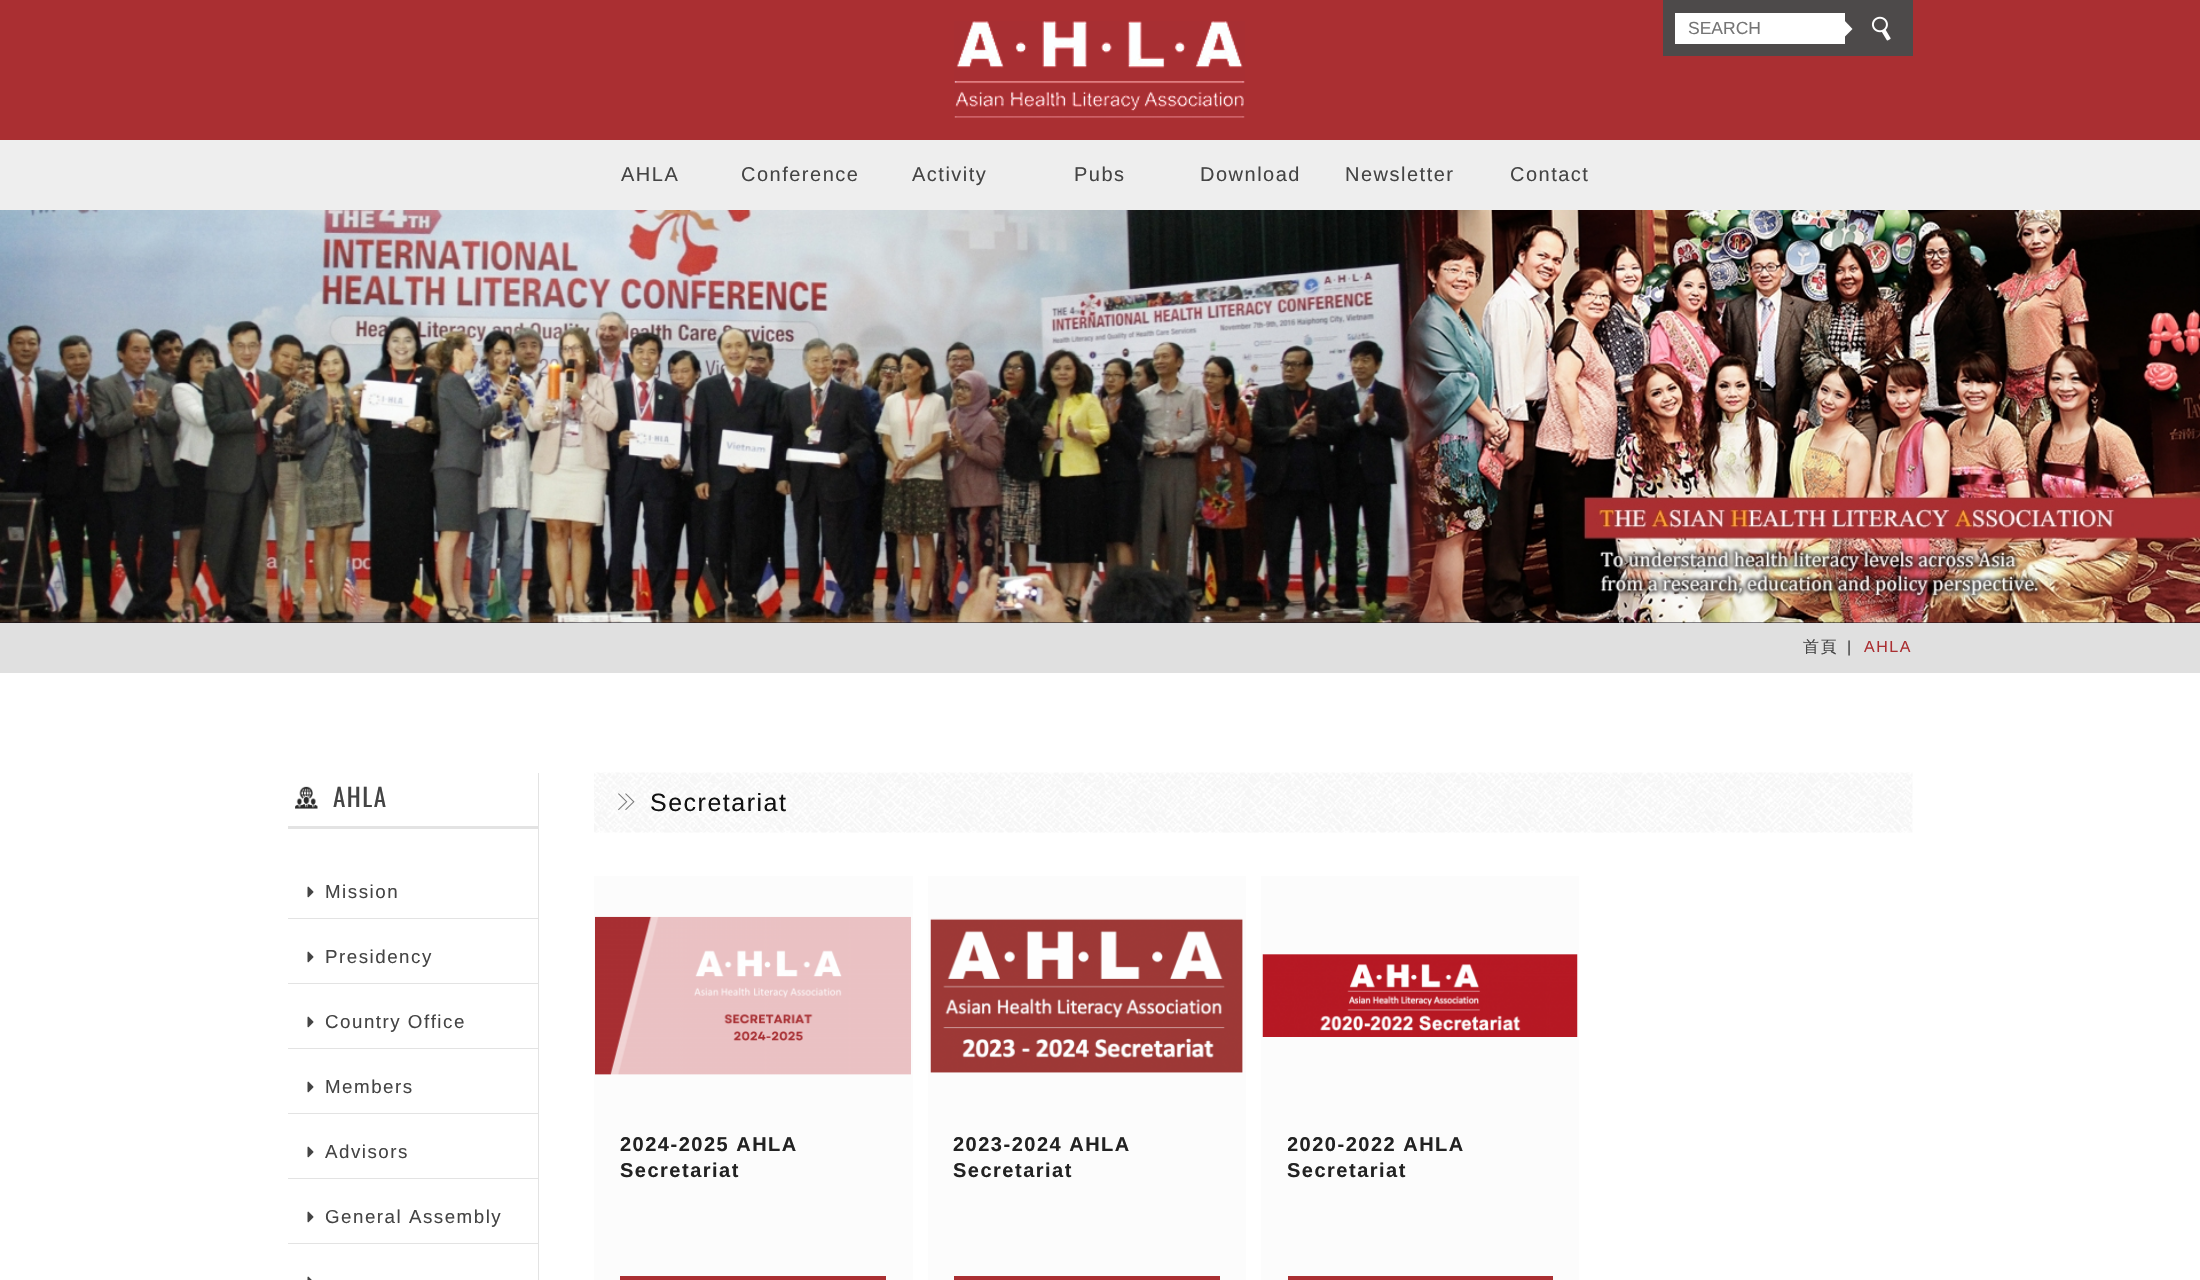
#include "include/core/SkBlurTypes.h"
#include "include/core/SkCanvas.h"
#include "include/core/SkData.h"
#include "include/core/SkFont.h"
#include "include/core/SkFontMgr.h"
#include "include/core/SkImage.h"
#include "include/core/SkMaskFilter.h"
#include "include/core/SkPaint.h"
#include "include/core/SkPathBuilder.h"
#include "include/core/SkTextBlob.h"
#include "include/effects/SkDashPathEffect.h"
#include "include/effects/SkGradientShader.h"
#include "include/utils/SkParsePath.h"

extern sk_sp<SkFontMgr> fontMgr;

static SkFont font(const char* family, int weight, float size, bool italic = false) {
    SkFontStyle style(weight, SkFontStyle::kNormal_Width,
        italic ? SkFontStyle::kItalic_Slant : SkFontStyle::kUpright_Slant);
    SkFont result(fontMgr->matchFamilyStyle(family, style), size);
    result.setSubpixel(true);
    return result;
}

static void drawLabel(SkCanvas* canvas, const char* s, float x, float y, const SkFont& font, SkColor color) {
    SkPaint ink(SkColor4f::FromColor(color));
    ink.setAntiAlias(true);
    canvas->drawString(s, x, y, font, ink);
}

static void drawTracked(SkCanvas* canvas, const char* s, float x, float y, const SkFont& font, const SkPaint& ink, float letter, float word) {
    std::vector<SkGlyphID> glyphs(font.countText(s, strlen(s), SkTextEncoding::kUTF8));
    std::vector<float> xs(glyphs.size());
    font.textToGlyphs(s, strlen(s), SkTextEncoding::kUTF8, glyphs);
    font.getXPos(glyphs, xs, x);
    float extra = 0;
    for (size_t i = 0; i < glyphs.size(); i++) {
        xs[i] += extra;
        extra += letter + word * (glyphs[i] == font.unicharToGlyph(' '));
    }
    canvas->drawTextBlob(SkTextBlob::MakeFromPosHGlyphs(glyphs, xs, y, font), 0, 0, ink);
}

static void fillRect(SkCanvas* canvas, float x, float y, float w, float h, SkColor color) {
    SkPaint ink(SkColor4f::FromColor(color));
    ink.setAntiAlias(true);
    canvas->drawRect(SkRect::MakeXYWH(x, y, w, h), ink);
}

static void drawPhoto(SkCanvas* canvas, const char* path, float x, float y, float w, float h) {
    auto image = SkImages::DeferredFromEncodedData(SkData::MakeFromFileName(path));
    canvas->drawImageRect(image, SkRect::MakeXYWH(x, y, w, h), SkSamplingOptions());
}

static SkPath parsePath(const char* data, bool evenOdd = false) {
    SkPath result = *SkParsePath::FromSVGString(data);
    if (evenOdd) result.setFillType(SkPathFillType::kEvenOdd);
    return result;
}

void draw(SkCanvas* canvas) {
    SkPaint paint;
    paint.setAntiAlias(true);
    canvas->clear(0xFFFFFFFF);
    fillRect(canvas, 0, 0, 2200, 140, 0xFFAA2F32);
    drawPhoto(canvas, "assets/img1.png", 954, 21, 291, 97);
    fillRect(canvas, 1663, 0, 250, 56, 0xFF4D4A4A);
    fillRect(canvas, 1675, 13, 170, 31, 0xFFFFFFFF);
    SkFont font1 = font("Liberation Sans", 400, 17.5f);
    drawLabel(canvas, "SEARCH", 1688, 34, font1, 0xFF757575);
    paint.setColor(0xFFFFFFFF);
    canvas->drawPath(parsePath("M1844 37.5V20L1852.5 29Z"), paint);
    drawPhoto(canvas, "assets/img2.png", 1871, 16, 20, 25);
    fillRect(canvas, 0, 140, 2200, 70, 0xFFEEEEEE);
    SkFont font2 = font("Liberation Sans", 400, 20);
    paint.setColor(0xFF444444);
    drawTracked(canvas, "AHLA", 621, 181, font2, paint, 1.5f, 0);
    drawTracked(canvas, "Conference", 741, 181, font2, paint, 1.5f, 0);
    drawTracked(canvas, "Activity", 912, 181, font2, paint, 1.5f, 0);
    drawTracked(canvas, "Pubs", 1074, 181, font2, paint, 1.5f, 0);
    drawTracked(canvas, "Download", 1200, 181, font2, paint, 1.5f, 0);
    drawTracked(canvas, "Newsletter", 1345, 181, font2, paint, 1.5f, 0);
    drawTracked(canvas, "Contact", 1510, 181, font2, paint, 1.5f, 0);
    fillRect(canvas, 0, 622, 2200, 1, 0xFF0E0C18);
    drawPhoto(canvas, "assets/img3.png", 0, 210, 2200, 413);
    fillRect(canvas, 0, 623, 2200, 50, 0xFFE0E0E0);
    SkFont font3 = font("WenQuanYi Zen Hei", 500, 16);
    drawTracked(canvas, "首頁", 1803, 652, font3, paint, 1.5f, 0);
    SkFont font4 = font("Liberation Sans", 400, 16);
    drawTracked(canvas, "|", 1847, 652, font4, paint, 1.5f, 0);
    paint.setColor(0xFFAA2F32);
    drawTracked(canvas, "AHLA", 1864, 652, font4, paint, 1.5f, 0);
    fillRect(canvas, 538, 773, 1, 507, 0xFFE3E3E3);
    drawPhoto(canvas, "assets/img4.png", 295, 786, 23, 23);
    fillRect(canvas, 288, 826, 250, 3, 0xFFE3E3E3);
    SkFont font5 = font("Oswald", 400, 25);
    paint.setColor(0xFF444444);
    drawTracked(canvas, "AHLA", 333, 807, font5, paint, 1.5f, 0);
    fillRect(canvas, 288, 918, 250, 1, 0xFFE3E3E3);
    drawPhoto(canvas, "assets/img5.png", 307, 886, 7, 12);
    SkFont font6 = font("Liberation Sans", 400, 18.75f);
    drawTracked(canvas, "Mission", 325, 898, font6, paint, 1.5f, 0);
    fillRect(canvas, 288, 983, 250, 1, 0xFFE3E3E3);
    drawPhoto(canvas, "assets/img5.png", 307, 951, 7, 12);
    drawTracked(canvas, "Presidency", 325, 963, font6, paint, 1.5f, 0);
    fillRect(canvas, 288, 1048, 250, 1, 0xFFE3E3E3);
    drawPhoto(canvas, "assets/img5.png", 307, 1016, 7, 12);
    drawTracked(canvas, "Country Office", 325, 1028, font6, paint, 1.5f, 0);
    fillRect(canvas, 288, 1113, 250, 1, 0xFFE3E3E3);
    drawPhoto(canvas, "assets/img5.png", 307, 1081, 7, 12);
    drawTracked(canvas, "Members", 325, 1093, font6, paint, 1.5f, 0);
    fillRect(canvas, 288, 1178, 250, 1, 0xFFE3E3E3);
    drawPhoto(canvas, "assets/img5.png", 307, 1146, 7, 12);
    drawTracked(canvas, "Advisors", 325, 1158, font6, paint, 1.5f, 0);
    fillRect(canvas, 288, 1243, 250, 1, 0xFFE3E3E3);
    drawPhoto(canvas, "assets/img5.png", 307, 1211, 7, 12);
    drawTracked(canvas, "General Assembly", 325, 1223, font6, paint, 1.5f, 0);
    drawPhoto(canvas, "assets/img6.png", 307, 1276, 5, 4);
    drawPhoto(canvas, "assets/img7.png", 594, 772, 1319, 61);
    drawPhoto(canvas, "assets/img8.png", 618, 793, 17, 18);
    SkFont font7 = font("Liberation Sans", 400, 25);
    paint.setColor(0xFF111111);
    drawTracked(canvas, "Secretariat", 650, 811, font7, paint, 1.5f, 0);
    fillRect(canvas, 594, 876, 319, 404, 0xFFFCFCFC);
    drawPhoto(canvas, "assets/img9.png", 595, 916, 316, 159);
    SkFont font8 = font("Liberation Sans", 700, 20);
    paint.setColor(0xFF222222);
    drawTracked(canvas, "2024-2025 AHLA", 620, 1151, font8, paint, 1.5f, 0);
    drawTracked(canvas, "Secretariat", 620, 1177, font8, paint, 1.5f, 0);
    fillRect(canvas, 620, 1276, 266, 4, 0xFFAA2F32);
    fillRect(canvas, 928, 876, 318, 404, 0xFFFCFCFC);
    drawPhoto(canvas, "assets/img10.png", 930, 918, 313, 155);
    drawTracked(canvas, "2023-2024 AHLA", 953, 1151, font8, paint, 1.5f, 0);
    drawTracked(canvas, "Secretariat", 953, 1177, font8, paint, 1.5f, 0);
    fillRect(canvas, 954, 1276, 266, 4, 0xFFAA2F32);
    fillRect(canvas, 1261, 876, 318, 404, 0xFFFCFCFC);
    drawPhoto(canvas, "assets/img11.png", 1262, 954, 316, 83);
    canvas->save();
    canvas->clipRect(SkRect::MakeXYWH(1288, 1133, 265, 47));
    drawTracked(canvas, "2020-2022 AHLA", 1287, 1151, font8, paint, 1.5f, 0);
    canvas->restore();
    drawTracked(canvas, "Secretariat", 1287, 1177, font8, paint, 1.5f, 0);
    fillRect(canvas, 1288, 1276, 265, 4, 0xFFAA2F32);
}
